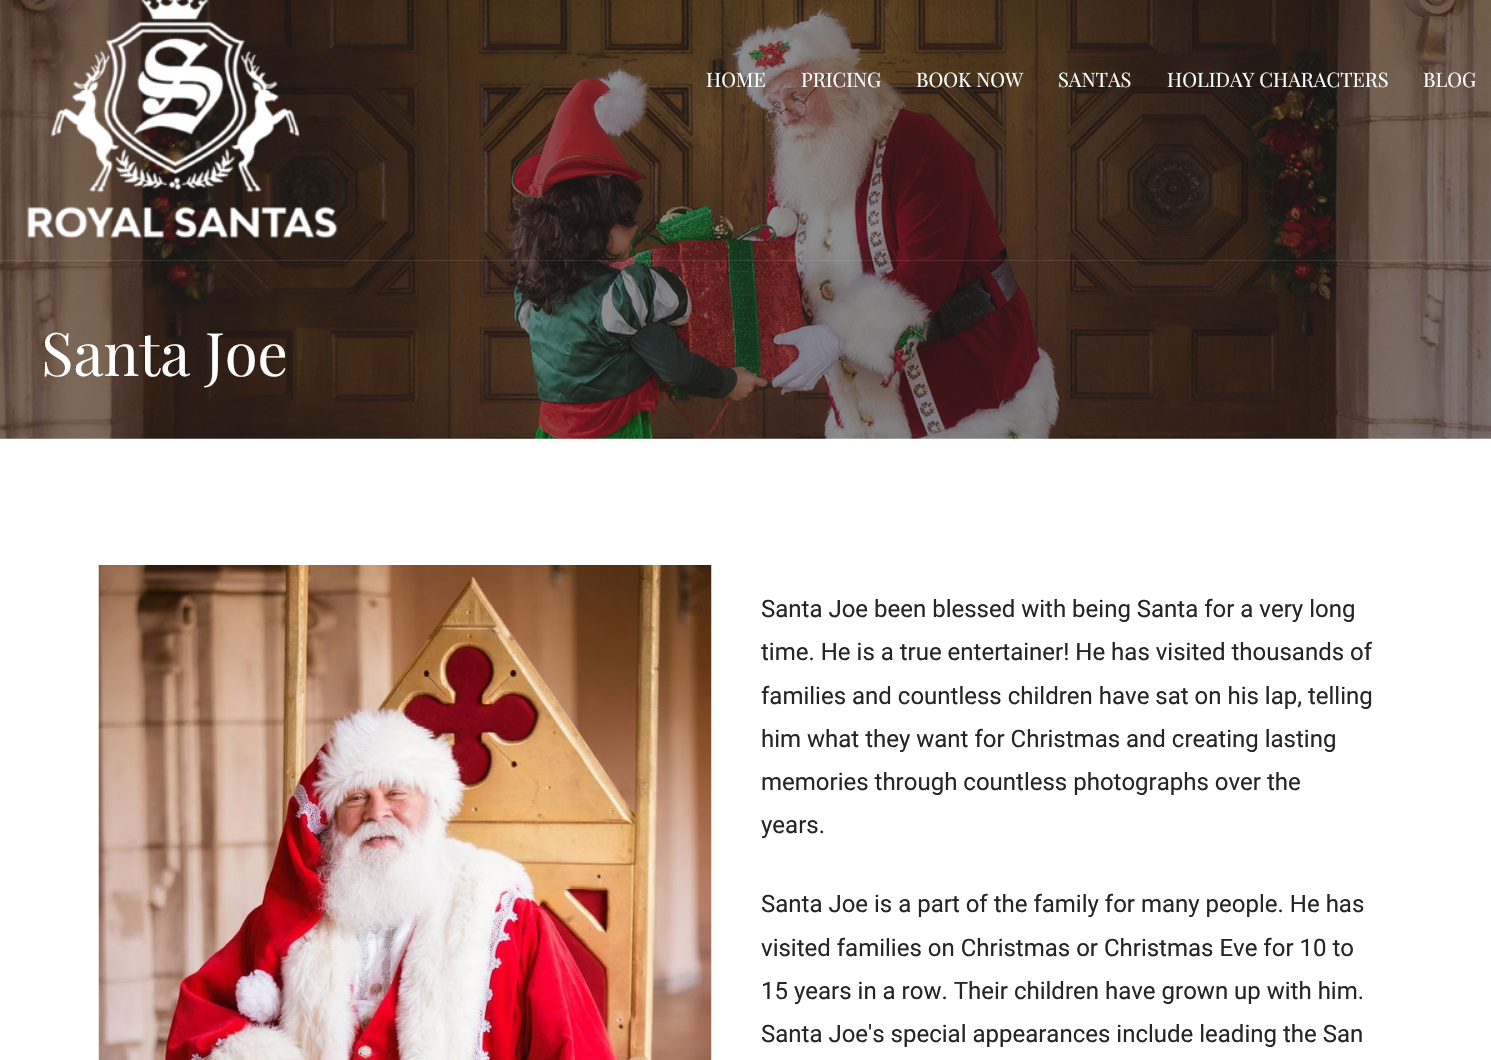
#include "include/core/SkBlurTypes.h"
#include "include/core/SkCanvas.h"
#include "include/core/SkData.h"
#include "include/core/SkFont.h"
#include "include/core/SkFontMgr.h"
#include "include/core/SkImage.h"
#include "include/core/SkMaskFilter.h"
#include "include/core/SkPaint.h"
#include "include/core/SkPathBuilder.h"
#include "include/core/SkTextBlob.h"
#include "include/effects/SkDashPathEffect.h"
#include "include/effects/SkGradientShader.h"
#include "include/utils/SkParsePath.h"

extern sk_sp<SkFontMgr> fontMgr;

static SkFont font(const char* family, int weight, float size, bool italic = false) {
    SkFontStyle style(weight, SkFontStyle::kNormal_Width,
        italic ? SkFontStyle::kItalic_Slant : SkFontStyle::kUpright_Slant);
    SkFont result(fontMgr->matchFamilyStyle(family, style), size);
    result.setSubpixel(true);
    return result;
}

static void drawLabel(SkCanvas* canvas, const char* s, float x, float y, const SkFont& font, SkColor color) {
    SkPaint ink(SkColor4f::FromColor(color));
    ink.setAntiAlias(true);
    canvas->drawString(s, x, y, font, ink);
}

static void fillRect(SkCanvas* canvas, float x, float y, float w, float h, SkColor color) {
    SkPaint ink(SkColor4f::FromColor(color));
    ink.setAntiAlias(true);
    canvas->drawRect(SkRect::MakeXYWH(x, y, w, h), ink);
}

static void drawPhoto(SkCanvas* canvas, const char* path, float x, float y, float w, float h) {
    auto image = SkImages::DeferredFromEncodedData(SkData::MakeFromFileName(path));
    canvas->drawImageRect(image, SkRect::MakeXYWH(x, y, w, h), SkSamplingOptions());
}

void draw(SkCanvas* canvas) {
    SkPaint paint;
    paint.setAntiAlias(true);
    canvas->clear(0xFFFFFFFF);
    drawPhoto(canvas, "assets/img1.png", 0, 0, 1491, 439);
    fillRect(canvas, 0, 260, 1491, 1, 0x1AFFFFFF);
    drawPhoto(canvas, "assets/img2.png", 27, 0, 311, 238);
    SkFont font1 = font("Playfair Display", 400, 20);
    drawLabel(canvas, "HOME", 706, 87, font1, 0xFFFFFFFF);
    drawLabel(canvas, "PRICING", 801, 87, font1, 0xFFFFFFFF);
    drawLabel(canvas, "BOOK NOW", 916, 87, font1, 0xFFFFFFFF);
    drawLabel(canvas, "SANTAS", 1058, 87, font1, 0xFFFFFFFF);
    drawLabel(canvas, "HOLIDAY CHARACTERS", 1167, 87, font1, 0xFFFFFFFF);
    drawLabel(canvas, "BLOG", 1423, 87, font1, 0xFFFFFFFF);
    SkFont font2 = font("Playfair Display", 400, 60);
    drawLabel(canvas, "Santa Joe", 41, 376, font2, 0xFFFFFFFF);
    drawPhoto(canvas, "assets/img3.png", 98, 565, 614, 495);
    SkFont font3 = font("Roboto", 400, 24);
    drawLabel(canvas, "Santa Joe been blessed with being Santa for a very long", 761, 617, font3, 0xFF252525);
    drawLabel(canvas, "time. He is a true entertainer! He has visited thousands of", 761, 660, font3, 0xFF252525);
    drawLabel(canvas, "families and countless children have sat on his lap, telling", 761, 704, font3, 0xFF252525);
    drawLabel(canvas, "him what they want for Christmas and creating lasting", 761, 747, font3, 0xFF252525);
    drawLabel(canvas, "memories through countless photographs over the", 761, 790, font3, 0xFF252525);
    drawLabel(canvas, "years.", 761, 833, font3, 0xFF252525);
    drawLabel(canvas, "Santa Joe is a part of the family for many people. He has", 761, 912, font3, 0xFF252525);
    drawLabel(canvas, "visited families on Christmas or Christmas Eve for 10 to", 761, 956, font3, 0xFF252525);
    drawLabel(canvas, "15 years in a row. Their children have grown up with him.", 761, 999, font3, 0xFF252525);
    drawLabel(canvas, "Santa Joe's special appearances include leading the San", 761, 1042, font3, 0xFF252525);
}
